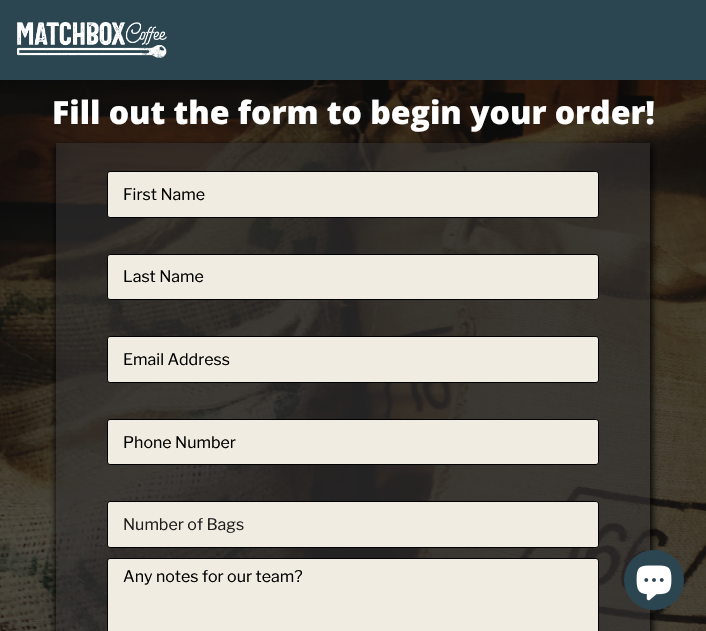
#include "include/core/SkBlurTypes.h"
#include "include/core/SkCanvas.h"
#include "include/core/SkData.h"
#include "include/core/SkFont.h"
#include "include/core/SkFontMgr.h"
#include "include/core/SkImage.h"
#include "include/core/SkMaskFilter.h"
#include "include/core/SkPaint.h"
#include "include/core/SkPathBuilder.h"
#include "include/core/SkTextBlob.h"
#include "include/effects/SkDashPathEffect.h"
#include "include/effects/SkGradientShader.h"
#include "include/utils/SkParsePath.h"

extern sk_sp<SkFontMgr> fontMgr;

static SkFont font(const char* family, int weight, float size, bool italic = false) {
    SkFontStyle style(weight, SkFontStyle::kNormal_Width,
        italic ? SkFontStyle::kItalic_Slant : SkFontStyle::kUpright_Slant);
    SkFont result(fontMgr->matchFamilyStyle(family, style), size);
    result.setSubpixel(true);
    return result;
}

static void drawLabel(SkCanvas* canvas, const char* s, float x, float y, const SkFont& font, SkColor color) {
    SkPaint ink(SkColor4f::FromColor(color));
    ink.setAntiAlias(true);
    canvas->drawString(s, x, y, font, ink);
}

static void fillRect(SkCanvas* canvas, float x, float y, float w, float h, SkColor color) {
    SkPaint ink(SkColor4f::FromColor(color));
    ink.setAntiAlias(true);
    canvas->drawRect(SkRect::MakeXYWH(x, y, w, h), ink);
}

static void drawPhoto(SkCanvas* canvas, const char* path, float x, float y, float w, float h) {
    auto image = SkImages::DeferredFromEncodedData(SkData::MakeFromFileName(path));
    canvas->drawImageRect(image, SkRect::MakeXYWH(x, y, w, h), SkSamplingOptions());
}

static SkPath parsePath(const char* data, bool evenOdd = false) {
    SkPath result = *SkParsePath::FromSVGString(data);
    if (evenOdd) result.setFillType(SkPathFillType::kEvenOdd);
    return result;
}

void draw(SkCanvas* canvas) {
    SkPaint paint;
    paint.setAntiAlias(true);
    canvas->clear(0xFF2B4651);
    drawPhoto(canvas, "assets/img1.png", 17, 22, 150, 36);
    drawPhoto(canvas, "assets/img2.png", 0, 80, 706, 551);
    SkFont font1 = font("Open Sans", 800, 32);
    drawLabel(canvas, "Fill out the form to begin your order!", 52, 124, font1, 0xFFFFFFFF);
    canvas->save();
    canvas->clipPath(parsePath("M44 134H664V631H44ZM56 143H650V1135H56Z", true), true);
    paint.setColor(0xFF000000);
    paint.setMaskFilter(SkMaskFilter::MakeBlur(kNormal_SkBlurStyle, 3.5f));
    canvas->drawRect(SkRect::MakeXYWH(56, 146, 596, 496), paint);
    paint.setMaskFilter(nullptr);
    canvas->restore();
    fillRect(canvas, 56, 143, 594, 488, 0x9C313030);
    paint.setColor(0xFFF1ECE1);
    canvas->drawRoundRect(SkRect::MakeXYWH(107.5f, 171.5f, 491, 46), 2.5f, 2.5f, paint);
    paint.setStroke(true);
    paint.setStrokeWidth(1);
    paint.setColor(0xFF000000);
    canvas->drawRoundRect(SkRect::MakeXYWH(107.5f, 171.5f, 491, 46), 2.5f, 2.5f, paint);
    SkFont font2 = font("Libre Franklin", 400, 16);
    drawLabel(canvas, "First Name", 123, 200, font2, 0xFF000000);
    paint.setStroke(false);
    paint.setColor(0xFFF1ECE1);
    canvas->drawRoundRect(SkRect::MakeXYWH(107.5f, 254.5f, 491, 45), 2.5f, 2.5f, paint);
    paint.setStroke(true);
    paint.setColor(0xFF000000);
    canvas->drawRoundRect(SkRect::MakeXYWH(107.5f, 254.5f, 491, 45), 2.5f, 2.5f, paint);
    drawLabel(canvas, "Last Name", 123, 282, font2, 0xFF000000);
    paint.setStroke(false);
    paint.setColor(0xFFF1ECE1);
    canvas->drawRoundRect(SkRect::MakeXYWH(107.5f, 336.5f, 491, 46), 2.5f, 2.5f, paint);
    paint.setStroke(true);
    paint.setColor(0xFF000000);
    canvas->drawRoundRect(SkRect::MakeXYWH(107.5f, 336.5f, 491, 46), 2.5f, 2.5f, paint);
    drawLabel(canvas, "Email Address", 123, 365, font2, 0xFF000000);
    paint.setStroke(false);
    paint.setColor(0xFFF1ECE1);
    canvas->drawRoundRect(SkRect::MakeXYWH(107.5f, 419.5f, 491, 45), 2.5f, 2.5f, paint);
    paint.setStroke(true);
    paint.setColor(0xFF000000);
    canvas->drawRoundRect(SkRect::MakeXYWH(107.5f, 419.5f, 491, 45), 2.5f, 2.5f, paint);
    drawLabel(canvas, "Phone Number", 123, 448, font2, 0xFF000000);
    paint.setStroke(false);
    paint.setColor(0xFFF1ECE1);
    canvas->drawRoundRect(SkRect::MakeXYWH(107.5f, 501.5f, 491, 46), 2.5f, 2.5f, paint);
    paint.setStroke(true);
    paint.setColor(0xFF000000);
    canvas->drawRoundRect(SkRect::MakeXYWH(107.5f, 501.5f, 491, 46), 2.5f, 2.5f, paint);
    drawLabel(canvas, "Number of Bags", 123, 530, font2, 0xFF1F1D1D);
    paint.setStroke(false);
    paint.setColor(0xFFF1ECE1);
    canvas->drawRoundRect(SkRect::MakeXYWH(107.5f, 558.5f, 491, 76), 2.5f, 2.5f, paint);
    paint.setStroke(true);
    paint.setColor(0xFF000000);
    canvas->drawRoundRect(SkRect::MakeXYWH(107.5f, 558.5f, 491, 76), 2.5f, 2.5f, paint);
    drawLabel(canvas, "Any notes for our team?", 123, 582, font2, 0xFF000000);
    paint.setStroke(false);
    paint.setColor(0xFF2B4651);
    canvas->drawCircle(654, 580, 30, paint);
    drawPhoto(canvas, "assets/img3.png", 636, 565, 36, 36);
}
